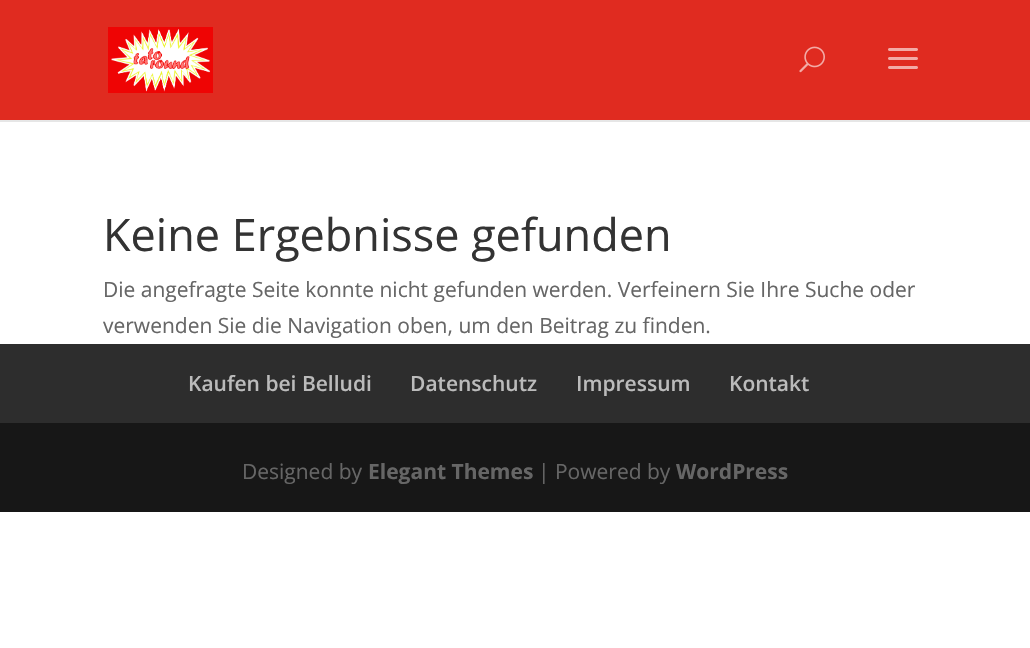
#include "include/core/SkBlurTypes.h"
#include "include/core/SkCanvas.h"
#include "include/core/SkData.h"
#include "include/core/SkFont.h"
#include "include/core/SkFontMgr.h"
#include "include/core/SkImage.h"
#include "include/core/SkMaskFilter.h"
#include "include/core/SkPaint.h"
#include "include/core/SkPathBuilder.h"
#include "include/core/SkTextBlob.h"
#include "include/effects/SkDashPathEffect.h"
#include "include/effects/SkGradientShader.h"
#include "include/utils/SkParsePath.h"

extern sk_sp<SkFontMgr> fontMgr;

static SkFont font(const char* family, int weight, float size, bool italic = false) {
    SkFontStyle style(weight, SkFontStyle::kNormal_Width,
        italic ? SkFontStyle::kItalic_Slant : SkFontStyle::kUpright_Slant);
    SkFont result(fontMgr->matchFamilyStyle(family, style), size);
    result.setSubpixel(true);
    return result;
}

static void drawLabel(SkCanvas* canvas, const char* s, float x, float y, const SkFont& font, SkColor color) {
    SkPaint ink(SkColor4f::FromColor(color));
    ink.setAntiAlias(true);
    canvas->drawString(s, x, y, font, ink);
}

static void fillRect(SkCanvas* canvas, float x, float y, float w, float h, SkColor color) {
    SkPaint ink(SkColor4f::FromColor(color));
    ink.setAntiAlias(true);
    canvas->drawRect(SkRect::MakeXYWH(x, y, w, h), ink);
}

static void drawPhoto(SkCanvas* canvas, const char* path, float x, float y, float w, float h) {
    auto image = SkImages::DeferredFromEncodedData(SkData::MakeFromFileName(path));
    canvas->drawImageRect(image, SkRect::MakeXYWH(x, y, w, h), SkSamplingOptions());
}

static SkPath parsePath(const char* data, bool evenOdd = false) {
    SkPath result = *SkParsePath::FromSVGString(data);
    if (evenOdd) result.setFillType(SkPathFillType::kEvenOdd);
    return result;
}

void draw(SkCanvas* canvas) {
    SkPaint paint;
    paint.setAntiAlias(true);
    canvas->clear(0xFFFFFFFF);
    paint.setColor(0xFFE6E6E6);
    canvas->drawPath(parsePath("M0 120V122H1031V2H1030V120Z"), paint);
    fillRect(canvas, 0, 0, 1030, 120, 0xFFE02B20);
    drawPhoto(canvas, "assets/img1.png", 108, 27, 105, 66);
    drawPhoto(canvas, "assets/img2.png", 799, 46, 26, 27);
    drawPhoto(canvas, "assets/img3.png", 888, 48, 30, 21);
    SkFont font1 = font("Open Sans", 400, 45);
    drawLabel(canvas, "Keine Ergebnisse gefunden", 103, 251, font1, 0xFF333333);
    SkFont font2 = font("Open Sans", 400, 21);
    drawLabel(canvas, "Die angefragte Seite konnte nicht gefunden werden. Verfeinern Sie Ihre Suche oder", 103, 297, font2, 0xFF666666);
    drawLabel(canvas, "verwenden Sie die Navigation oben, um den Beitrag zu finden.", 103, 333, font2, 0xFF666666);
    fillRect(canvas, 0, 344, 1030, 79, 0xFF2D2D2D);
    SkFont font3 = font("Open Sans", 600, 21);
    drawLabel(canvas, "Kaufen bei Belludi", 188, 391, font3, 0xFFBBBBBB);
    drawLabel(canvas, "Datenschutz", 410, 391, font3, 0xFFBBBBBB);
    drawLabel(canvas, "Impressum", 576, 391, font3, 0xFFBBBBBB);
    drawLabel(canvas, "Kontakt", 729, 391, font3, 0xFFBBBBBB);
    fillRect(canvas, 0, 423, 1030, 89, 0xFF171717);
    drawLabel(canvas, "Designed by", 242, 479, font2, 0xFF666666);
    SkFont font4 = font("Open Sans", 700, 21);
    drawLabel(canvas, "Elegant Themes", 368, 479, font4, 0xFF666666);
    drawLabel(canvas, "| Powered by", 538, 479, font2, 0xFF666666);
    drawLabel(canvas, "WordPress", 676, 479, font4, 0xFF666666);
}
